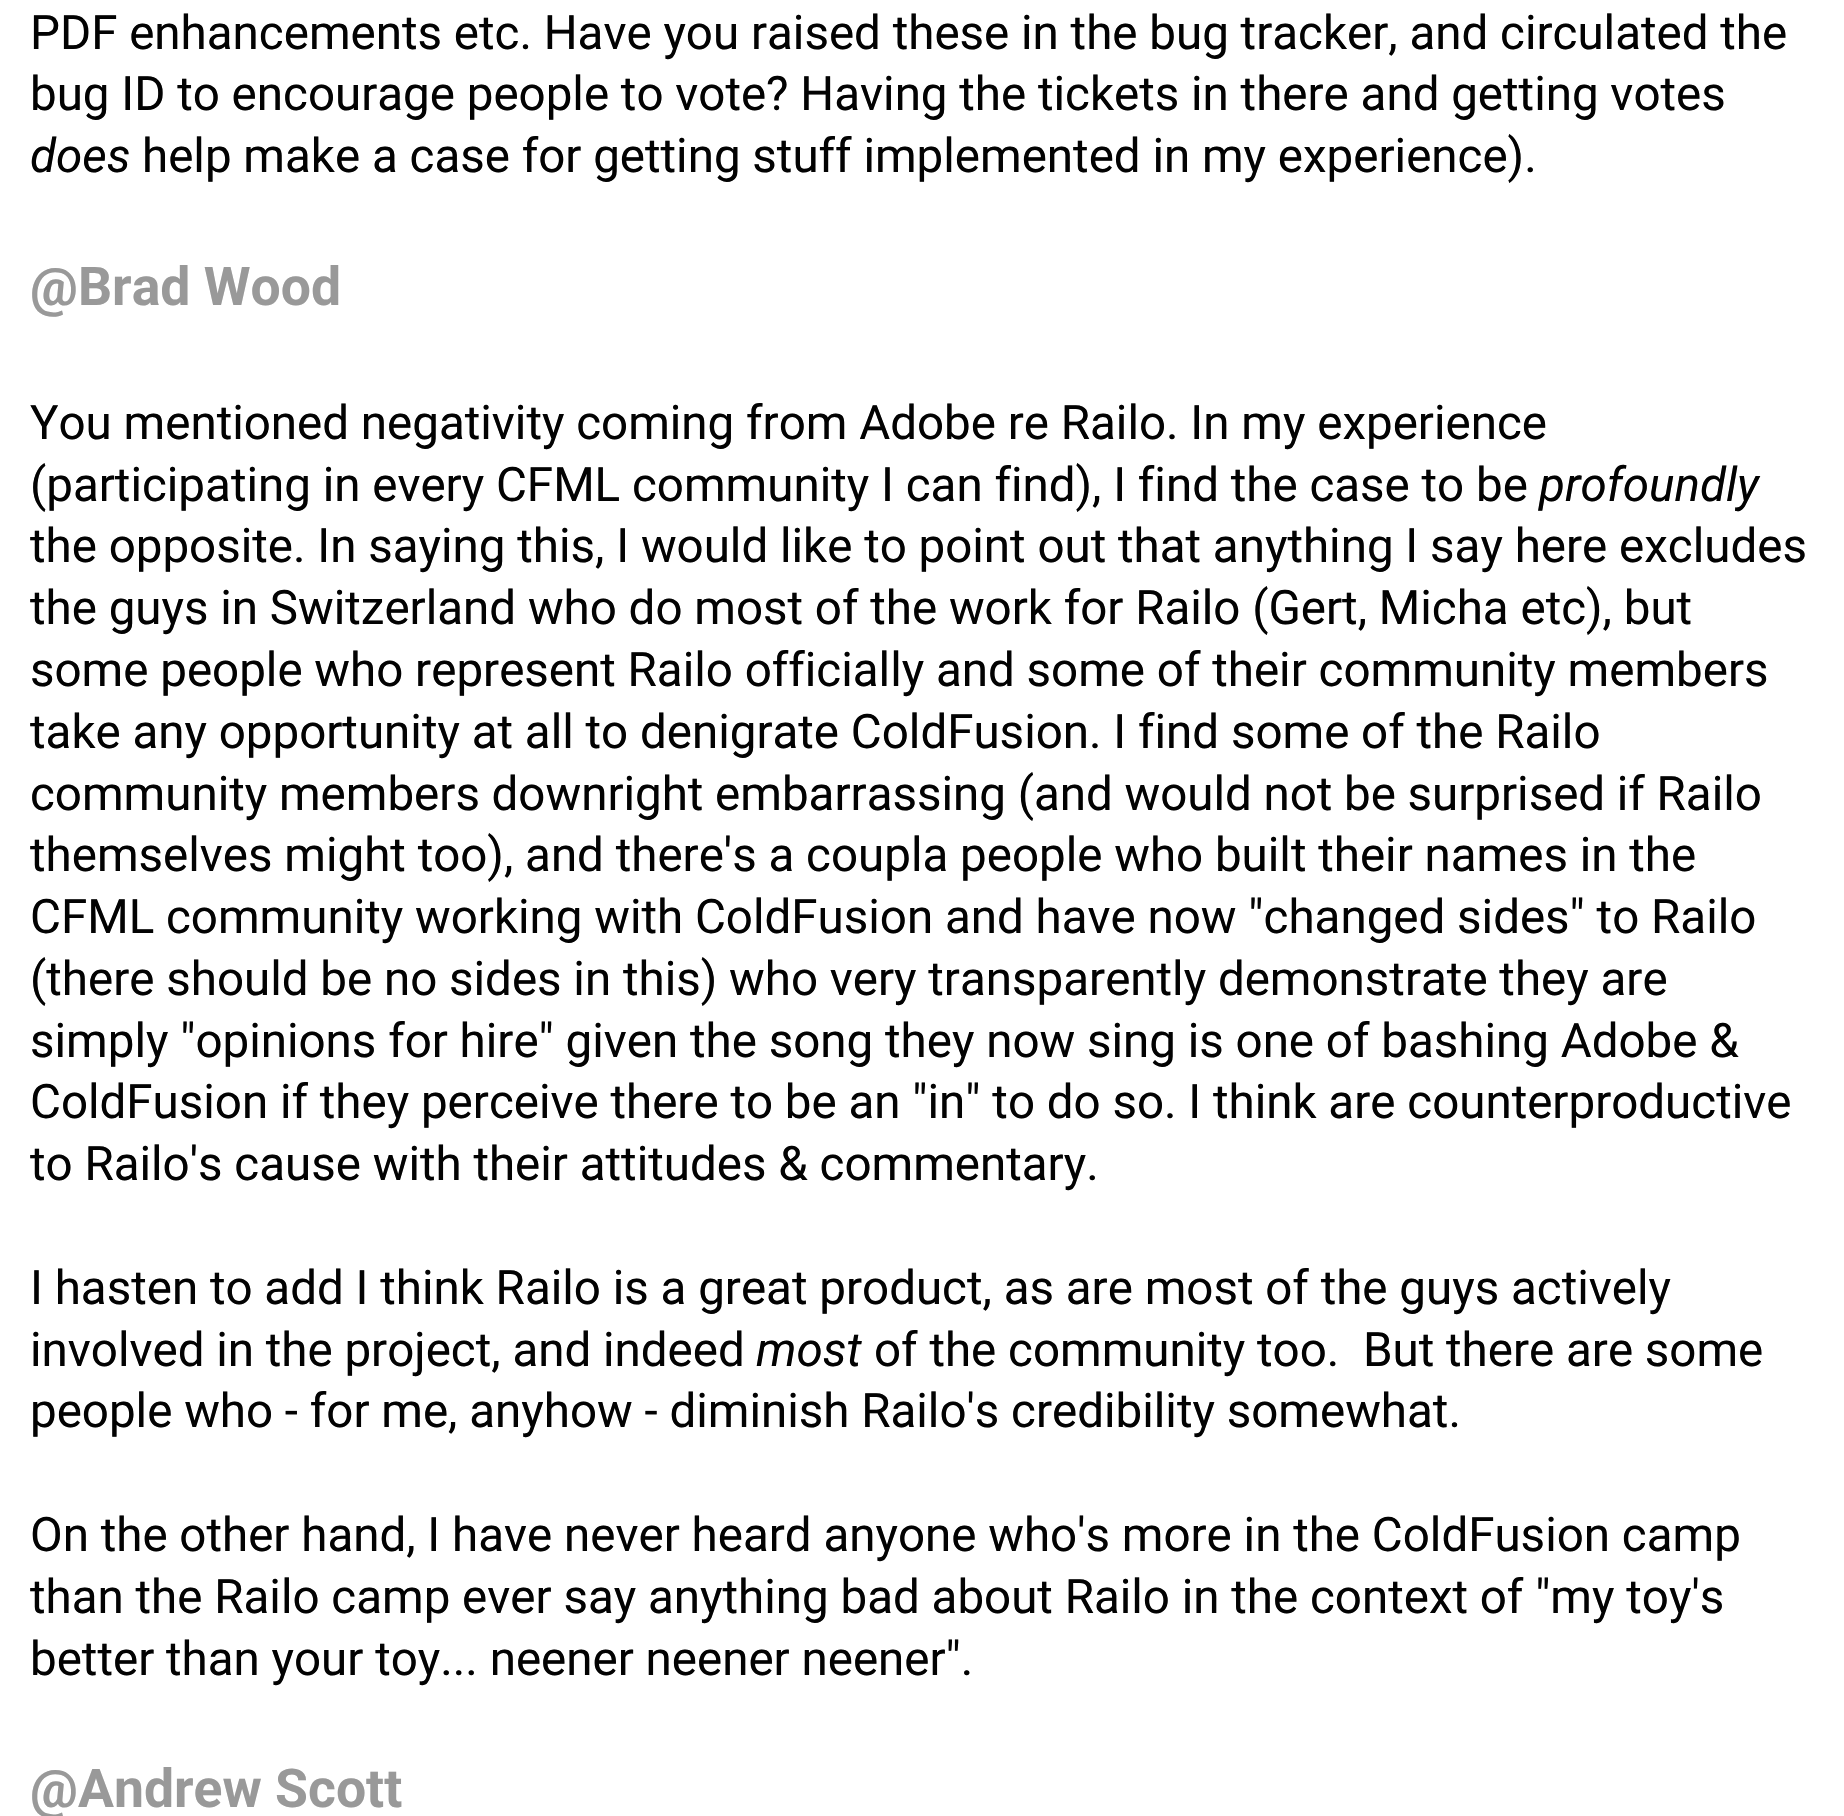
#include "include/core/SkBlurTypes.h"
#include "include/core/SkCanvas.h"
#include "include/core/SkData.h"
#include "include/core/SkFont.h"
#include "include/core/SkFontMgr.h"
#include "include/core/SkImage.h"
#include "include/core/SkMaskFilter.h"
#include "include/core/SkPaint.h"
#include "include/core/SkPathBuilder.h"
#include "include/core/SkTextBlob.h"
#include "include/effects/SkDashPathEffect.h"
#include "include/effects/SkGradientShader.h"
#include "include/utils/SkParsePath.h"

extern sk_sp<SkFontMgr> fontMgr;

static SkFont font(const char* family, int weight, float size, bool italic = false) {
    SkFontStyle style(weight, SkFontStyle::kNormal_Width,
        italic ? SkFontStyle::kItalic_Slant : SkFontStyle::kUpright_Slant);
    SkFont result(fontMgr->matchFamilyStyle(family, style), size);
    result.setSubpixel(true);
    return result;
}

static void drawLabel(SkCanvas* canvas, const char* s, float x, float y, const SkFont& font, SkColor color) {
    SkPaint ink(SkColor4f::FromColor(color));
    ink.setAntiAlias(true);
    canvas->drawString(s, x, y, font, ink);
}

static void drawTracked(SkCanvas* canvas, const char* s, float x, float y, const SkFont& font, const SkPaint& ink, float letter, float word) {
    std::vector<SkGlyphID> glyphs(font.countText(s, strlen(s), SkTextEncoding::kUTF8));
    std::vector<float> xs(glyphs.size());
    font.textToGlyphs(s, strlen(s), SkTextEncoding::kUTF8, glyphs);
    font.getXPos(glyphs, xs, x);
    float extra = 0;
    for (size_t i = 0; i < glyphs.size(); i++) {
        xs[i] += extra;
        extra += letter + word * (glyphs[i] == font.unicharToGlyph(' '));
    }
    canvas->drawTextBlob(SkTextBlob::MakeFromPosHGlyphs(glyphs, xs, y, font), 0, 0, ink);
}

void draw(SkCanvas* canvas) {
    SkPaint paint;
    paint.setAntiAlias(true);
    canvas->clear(0xFFFFFFFF);
    SkFont font1 = font("Roboto", 400, 47.5f);
    drawLabel(canvas, "PDF enhancements etc. Have you raised these in the bug tracker, and circulated the", 30, 49, font1, 0xFF020202);
    drawLabel(canvas, "bug ID to encourage people to vote? Having the tickets in there and getting votes", 30, 110, font1, 0xFF020202);
    SkFont font2 = font("Roboto", 400, 47.5f, true);
    drawLabel(canvas, "does", 30, 172, font2, 0xFF020202);
    drawLabel(canvas, "help make a case for getting stuff implemented in my experience).", 142, 172, font1, 0xFF020202);
    SkFont font3 = font("Roboto", 700, 53.5f);
    drawLabel(canvas, "@Brad Wood", 30, 305, font3, 0xFF999999);
    drawLabel(canvas, "You mentioned negativity coming from Adobe re Railo. In my experience", 30, 439, font1, 0xFF020202);
    drawLabel(canvas, "(participating in every CFML community I can find), I find the case to be", 30, 501, font1, 0xFF020202);
    drawLabel(canvas, "profoundly", 1539, 501, font2, 0xFF020202);
    drawLabel(canvas, "the opposite. In saying this, I would like to point out that anything I say here excludes", 30, 562, font1, 0xFF020202);
    drawLabel(canvas, "the guys in Switzerland who do most of the work for Railo (Gert, Micha etc), but", 30, 624, font1, 0xFF020202);
    drawLabel(canvas, "some people who represent Railo officially and some of their community members", 30, 686, font1, 0xFF020202);
    drawLabel(canvas, "take any opportunity at all to denigrate ColdFusion. I find some of the Railo", 30, 748, font1, 0xFF020202);
    paint.setColor(0xFF020202);
    drawTracked(canvas, "community members downright embarrassing (and would not be surprised if Railo", 30, 810, font1, paint, 0, -0.1f);
    drawLabel(canvas, "themselves might too), and there's a coupla people who built their names in the", 30, 871, font1, 0xFF020202);
    drawLabel(canvas, "CFML community working with ColdFusion and have now \"changed sides\" to Railo", 30, 933, font1, 0xFF020202);
    drawLabel(canvas, "(there should be no sides in this) who very transparently demonstrate they are", 30, 995, font1, 0xFF020202);
    drawLabel(canvas, "simply \"opinions for hire\" given the song they now sing is one of bashing Adobe &", 30, 1057, font1, 0xFF020202);
    drawLabel(canvas, "ColdFusion if they perceive there to be an \"in\" to do so. I think are counterproductive", 30, 1118, font1, 0xFF020202);
    drawLabel(canvas, "to Railo's cause with their attitudes & commentary.", 30, 1180, font1, 0xFF020202);
    drawLabel(canvas, "I hasten to add I think Railo is a great product, as are most of the guys actively", 30, 1304, font1, 0xFF020202);
    drawLabel(canvas, "involved in the project, and indeed", 30, 1366, font1, 0xFF020202);
    drawLabel(canvas, "most", 756, 1366, font2, 0xFF020202);
    drawLabel(canvas, "of the community too.  But there are some", 874, 1366, font1, 0xFF020202);
    drawLabel(canvas, "people who - for me, anyhow - diminish Railo's credibility somewhat.", 30, 1427, font1, 0xFF020202);
    drawLabel(canvas, "On the other hand, I have never heard anyone who's more in the ColdFusion camp", 30, 1551, font1, 0xFF020202);
    drawLabel(canvas, "than the Railo camp ever say anything bad about Railo in the context of \"my toy's", 30, 1613, font1, 0xFF020202);
    drawLabel(canvas, "better than your toy... neener neener neener\".", 30, 1675, font1, 0xFF020202);
    drawLabel(canvas, "@Andrew Scott", 30, 1807, font3, 0xFF999999);
}
